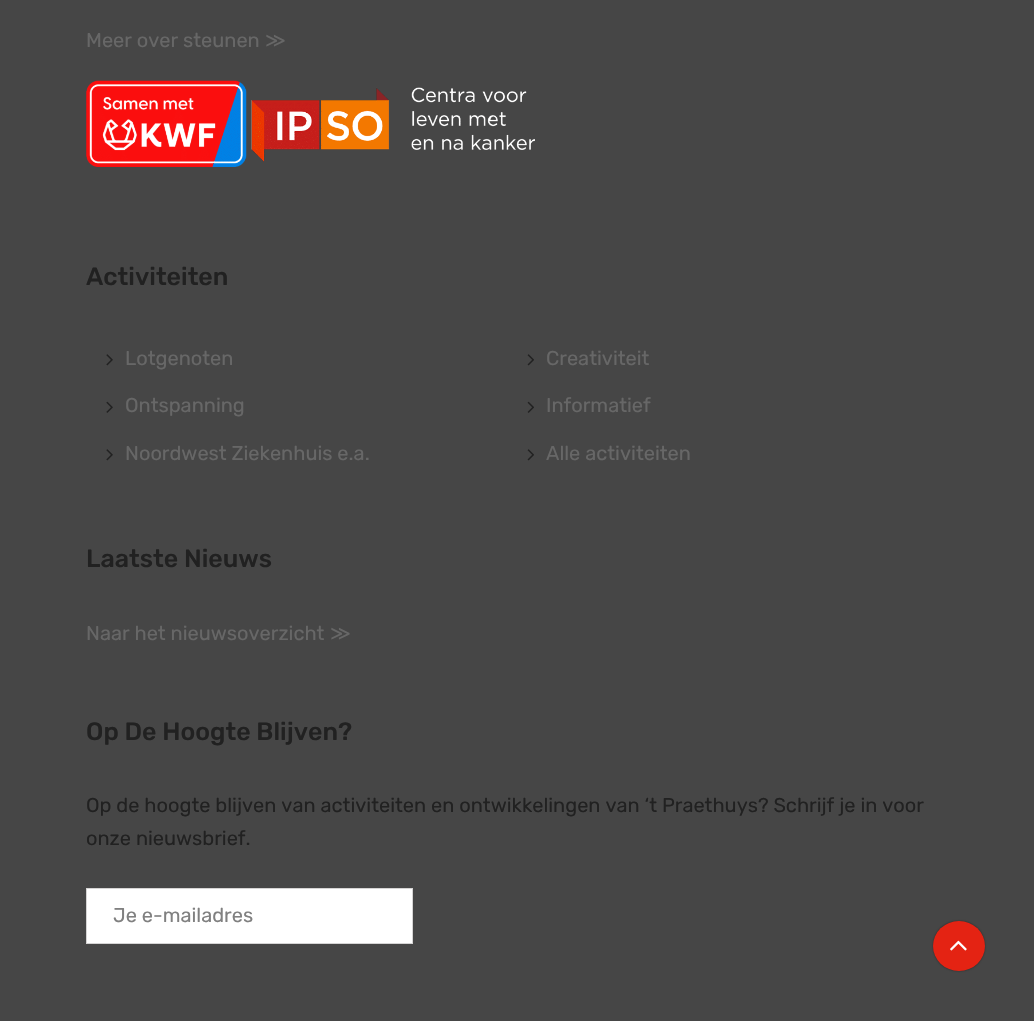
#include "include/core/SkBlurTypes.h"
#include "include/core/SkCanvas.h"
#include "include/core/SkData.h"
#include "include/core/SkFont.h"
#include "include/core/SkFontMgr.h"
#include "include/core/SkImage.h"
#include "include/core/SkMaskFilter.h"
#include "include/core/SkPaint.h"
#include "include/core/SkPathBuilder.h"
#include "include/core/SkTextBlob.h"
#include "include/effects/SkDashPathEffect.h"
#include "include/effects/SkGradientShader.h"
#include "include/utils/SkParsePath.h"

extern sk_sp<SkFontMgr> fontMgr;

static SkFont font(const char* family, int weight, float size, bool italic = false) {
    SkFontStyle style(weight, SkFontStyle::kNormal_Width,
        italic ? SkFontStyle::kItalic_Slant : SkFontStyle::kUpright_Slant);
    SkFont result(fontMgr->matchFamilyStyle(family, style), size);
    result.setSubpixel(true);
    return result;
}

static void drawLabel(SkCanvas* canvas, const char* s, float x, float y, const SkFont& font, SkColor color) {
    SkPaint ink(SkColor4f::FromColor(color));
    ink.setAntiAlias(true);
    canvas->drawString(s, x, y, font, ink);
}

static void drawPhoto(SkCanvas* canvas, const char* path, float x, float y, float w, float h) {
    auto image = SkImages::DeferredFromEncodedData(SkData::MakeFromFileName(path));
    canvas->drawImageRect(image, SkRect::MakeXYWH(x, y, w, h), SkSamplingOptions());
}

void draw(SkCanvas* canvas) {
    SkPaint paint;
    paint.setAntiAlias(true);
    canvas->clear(0xFF464646);
    SkFont font1 = font("Rubik", 400, 20);
    drawLabel(canvas, "Meer over steunen", 86, 47, font1, 0xFF676767);
    SkFont font2 = font("DejaVu Sans", 400, 20);
    drawLabel(canvas, "≫", 265, 47, font2, 0xFF676767);
    drawPhoto(canvas, "assets/img1.png", 86, 80, 161, 87);
    drawPhoto(canvas, "assets/img2.png", 251, 87, 284, 75);
    SkFont font3 = font("Rubik", 500, 25);
    drawLabel(canvas, "Activiteiten", 86, 285, font3, 0xFF212121);
    drawPhoto(canvas, "assets/img3.png", 106, 354, 7, 12);
    drawLabel(canvas, "Lotgenoten", 125, 365, font1, 0xFF676767);
    drawPhoto(canvas, "assets/img4.png", 527, 354, 7, 12);
    drawLabel(canvas, "Creativiteit", 546, 365, font1, 0xFF676767);
    drawPhoto(canvas, "assets/img5.png", 106, 401, 7, 12);
    drawLabel(canvas, "Ontspanning", 125, 412, font1, 0xFF676767);
    drawPhoto(canvas, "assets/img6.png", 527, 401, 7, 12);
    drawLabel(canvas, "Informatief", 546, 412, font1, 0xFF676767);
    drawPhoto(canvas, "assets/img3.png", 106, 449, 7, 12);
    drawLabel(canvas, "Noordwest Ziekenhuis e.a.", 125, 460, font1, 0xFF676767);
    drawPhoto(canvas, "assets/img4.png", 527, 449, 7, 12);
    drawLabel(canvas, "Alle activiteiten", 546, 460, font1, 0xFF676767);
    drawLabel(canvas, "Laatste Nieuws", 86, 567, font3, 0xFF212121);
    drawLabel(canvas, "Naar het nieuwsoverzicht", 86, 640, font1, 0xFF676767);
    drawLabel(canvas, "≫", 330, 640, font2, 0xFF676767);
    drawLabel(canvas, "Op De Hoogte Blijven?", 86, 740, font3, 0xFF212121);
    drawLabel(canvas, "Op de hoogte blijven van activiteiten en ontwikkelingen van ‘t Praethuys? Schrijf je in voor", 86, 812, font1, 0xFF212121);
    drawLabel(canvas, "onze nieuwsbrief.", 86, 845, font1, 0xFF212121);
    paint.setColor(0xFFFFFFFF);
    canvas->drawRect(SkRect::MakeXYWH(86.5f, 888.5f, 326, 55), paint);
    paint.setStroke(true);
    paint.setStrokeWidth(1);
    paint.setColor(0xFFD5D4D4);
    canvas->drawRect(SkRect::MakeXYWH(86.5f, 888.5f, 326, 55), paint);
    drawLabel(canvas, "Je e-mailadres", 113, 922, font1, 0xFF808080);
    paint.setStroke(false);
    paint.setColor(0x66000000);
    paint.setMaskFilter(SkMaskFilter::MakeBlur(kNormal_SkBlurStyle, 1));
    canvas->drawRoundRect(SkRect::MakeXYWH(933, 921, 52, 50), 25, 25, paint);
    paint.setMaskFilter(nullptr);
    paint.setColor(0xFFE42313);
    canvas->drawOval(SkRect::MakeXYWH(933, 921, 52, 50), paint);
    drawPhoto(canvas, "assets/img7.png", 950, 940, 17, 11);
}
